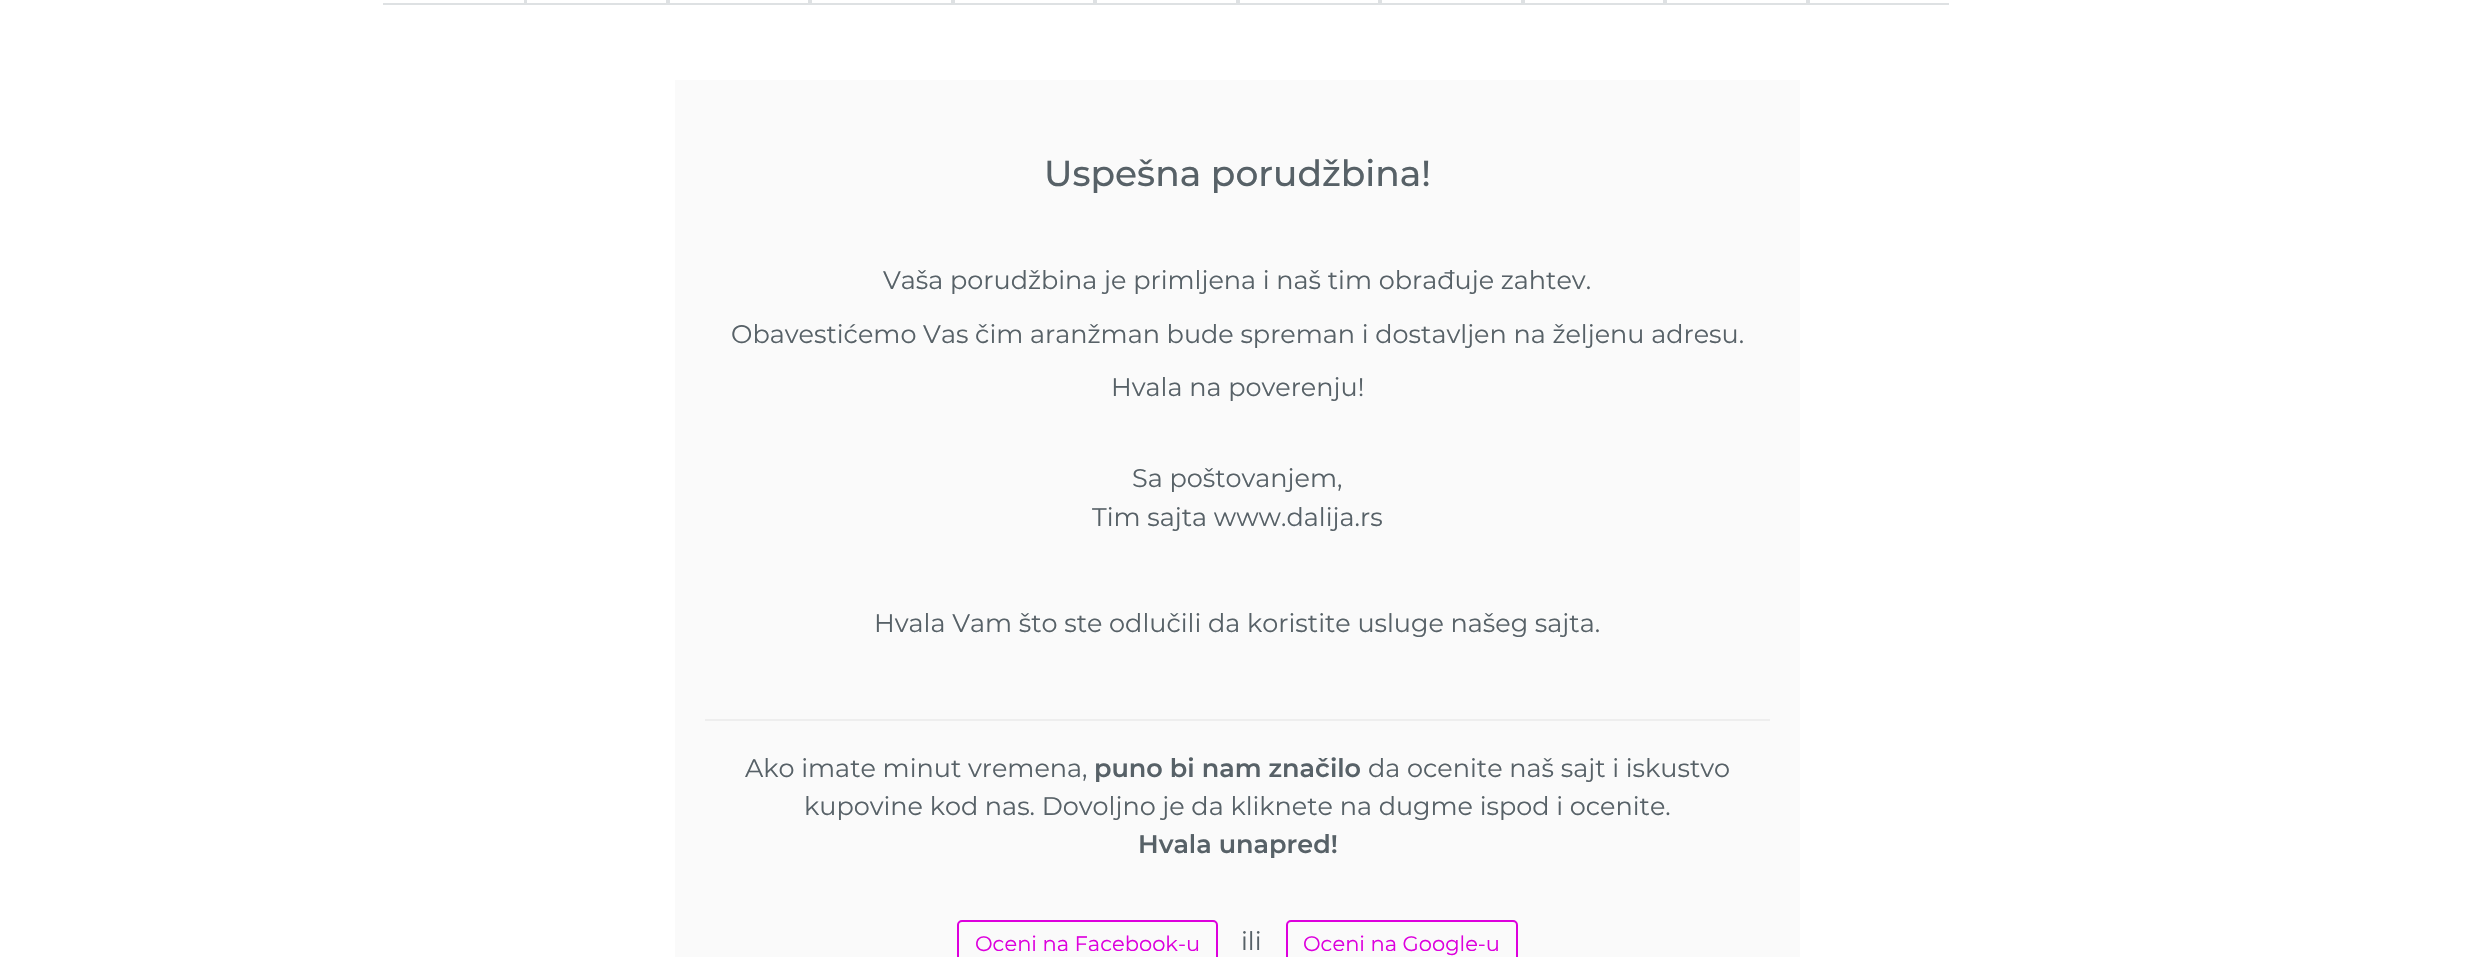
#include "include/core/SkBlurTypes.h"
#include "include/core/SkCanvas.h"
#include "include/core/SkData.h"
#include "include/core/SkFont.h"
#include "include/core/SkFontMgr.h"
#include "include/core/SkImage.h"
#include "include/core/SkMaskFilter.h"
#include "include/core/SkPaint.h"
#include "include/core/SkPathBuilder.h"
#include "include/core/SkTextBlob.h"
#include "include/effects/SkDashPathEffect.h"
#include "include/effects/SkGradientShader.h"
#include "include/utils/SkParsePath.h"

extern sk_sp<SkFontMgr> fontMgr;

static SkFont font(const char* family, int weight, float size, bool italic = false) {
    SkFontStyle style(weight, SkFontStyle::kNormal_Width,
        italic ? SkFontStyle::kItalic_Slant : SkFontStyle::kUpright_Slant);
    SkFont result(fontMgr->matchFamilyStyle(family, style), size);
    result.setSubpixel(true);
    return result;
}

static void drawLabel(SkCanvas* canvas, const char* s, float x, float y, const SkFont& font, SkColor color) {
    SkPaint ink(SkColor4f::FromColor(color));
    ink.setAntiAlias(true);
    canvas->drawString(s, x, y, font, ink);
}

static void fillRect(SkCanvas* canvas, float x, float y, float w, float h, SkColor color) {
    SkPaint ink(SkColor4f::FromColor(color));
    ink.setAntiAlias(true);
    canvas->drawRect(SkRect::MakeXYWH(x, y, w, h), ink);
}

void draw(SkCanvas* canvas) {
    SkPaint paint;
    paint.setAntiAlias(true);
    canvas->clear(0xFFFFFFFF);
    fillRect(canvas, 524, 0, 1, 5, 0xFFDEE1E3);
    fillRect(canvas, 383, 3, 142, 2, 0xFFDEE1E3);
    paint.setStroke(true);
    paint.setStrokeWidth(2);
    paint.setColor(0xFFDEE1E3);
    canvas->drawRect(SkRect::MakeXYWH(526, -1, 141, 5), paint);
    canvas->drawRect(SkRect::MakeXYWH(669, -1, 140, 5), paint);
    canvas->drawRect(SkRect::MakeXYWH(811, -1, 141, 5), paint);
    canvas->drawRect(SkRect::MakeXYWH(954, -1, 140, 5), paint);
    canvas->drawRect(SkRect::MakeXYWH(1096, -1, 141, 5), paint);
    canvas->drawRect(SkRect::MakeXYWH(1239, -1, 140, 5), paint);
    canvas->drawRect(SkRect::MakeXYWH(1381, -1, 141, 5), paint);
    canvas->drawRect(SkRect::MakeXYWH(1524, -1, 140, 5), paint);
    canvas->drawRect(SkRect::MakeXYWH(1666, -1, 141, 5), paint);
    fillRect(canvas, 1808, 3, 141, 2, 0xFFDEE1E3);
    fillRect(canvas, 1808, 0, 2, 5, 0xFFDEE1E3);
    fillRect(canvas, 675, 80, 1125, 877, 0xFFFAFAFA);
    SkFont font1 = font("Montserrat", 500, 36);
    drawLabel(canvas, "Uspešna porudžbina!", 1044, 186, font1, 0xFF576167);
    SkFont font2 = font("Montserrat", 400, 25.5f);
    drawLabel(canvas, "Vaša porudžbina je primljena i naš tim obrađuje zahtev.", 883, 289, font2, 0xFF576167);
    drawLabel(canvas, "Obavestićemo Vas čim aranžman bude spreman i dostavljen na željenu adresu.", 731, 343, font2, 0xFF576167);
    drawLabel(canvas, "Hvala na poverenju!", 1111, 396, font2, 0xFF576167);
    drawLabel(canvas, "Sa poštovanjem,", 1132, 487, font2, 0xFF576167);
    drawLabel(canvas, "Tim sajta www.dalija.rs", 1092, 526, font2, 0xFF576167);
    drawLabel(canvas, "Hvala Vam što ste odlučili da koristite usluge našeg sajta.", 874, 632, font2, 0xFF576167);
    fillRect(canvas, 705, 719, 1065, 2, 0xFFEEEEEE);
    drawLabel(canvas, "Ako imate minut vremena,", 745, 777, font2, 0xFF576167);
    SkFont font3 = font("Montserrat", 600, 25.5f);
    drawLabel(canvas, "puno bi nam značilo", 1094, 777, font3, 0xFF576167);
    drawLabel(canvas, "da ocenite naš sajt i iskustvo", 1368, 777, font2, 0xFF576167);
    drawLabel(canvas, "kupovine kod nas. Dovoljno je da kliknete na dugme ispod i ocenite.", 804, 815, font2, 0xFF576167);
    drawLabel(canvas, "Hvala unapred!", 1138, 853, font3, 0xFF576167);
    paint.setColor(0xFFDD00DD);
    canvas->drawRoundRect(SkRect::MakeXYWH(958, 921, 259, 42), 4, 4, paint);
    SkFont font4 = font("Montserrat", 400, 21);
    drawLabel(canvas, "Oceni na Facebook-u", 975, 951, font4, 0xFFDD00DD);
    drawLabel(canvas, "ili", 1241, 950, font2, 0xFF576167);
    canvas->drawRoundRect(SkRect::MakeXYWH(1287, 921, 230, 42), 4, 4, paint);
    drawLabel(canvas, "Oceni na Google-u", 1303, 951, font4, 0xFFDD00DD);
}
